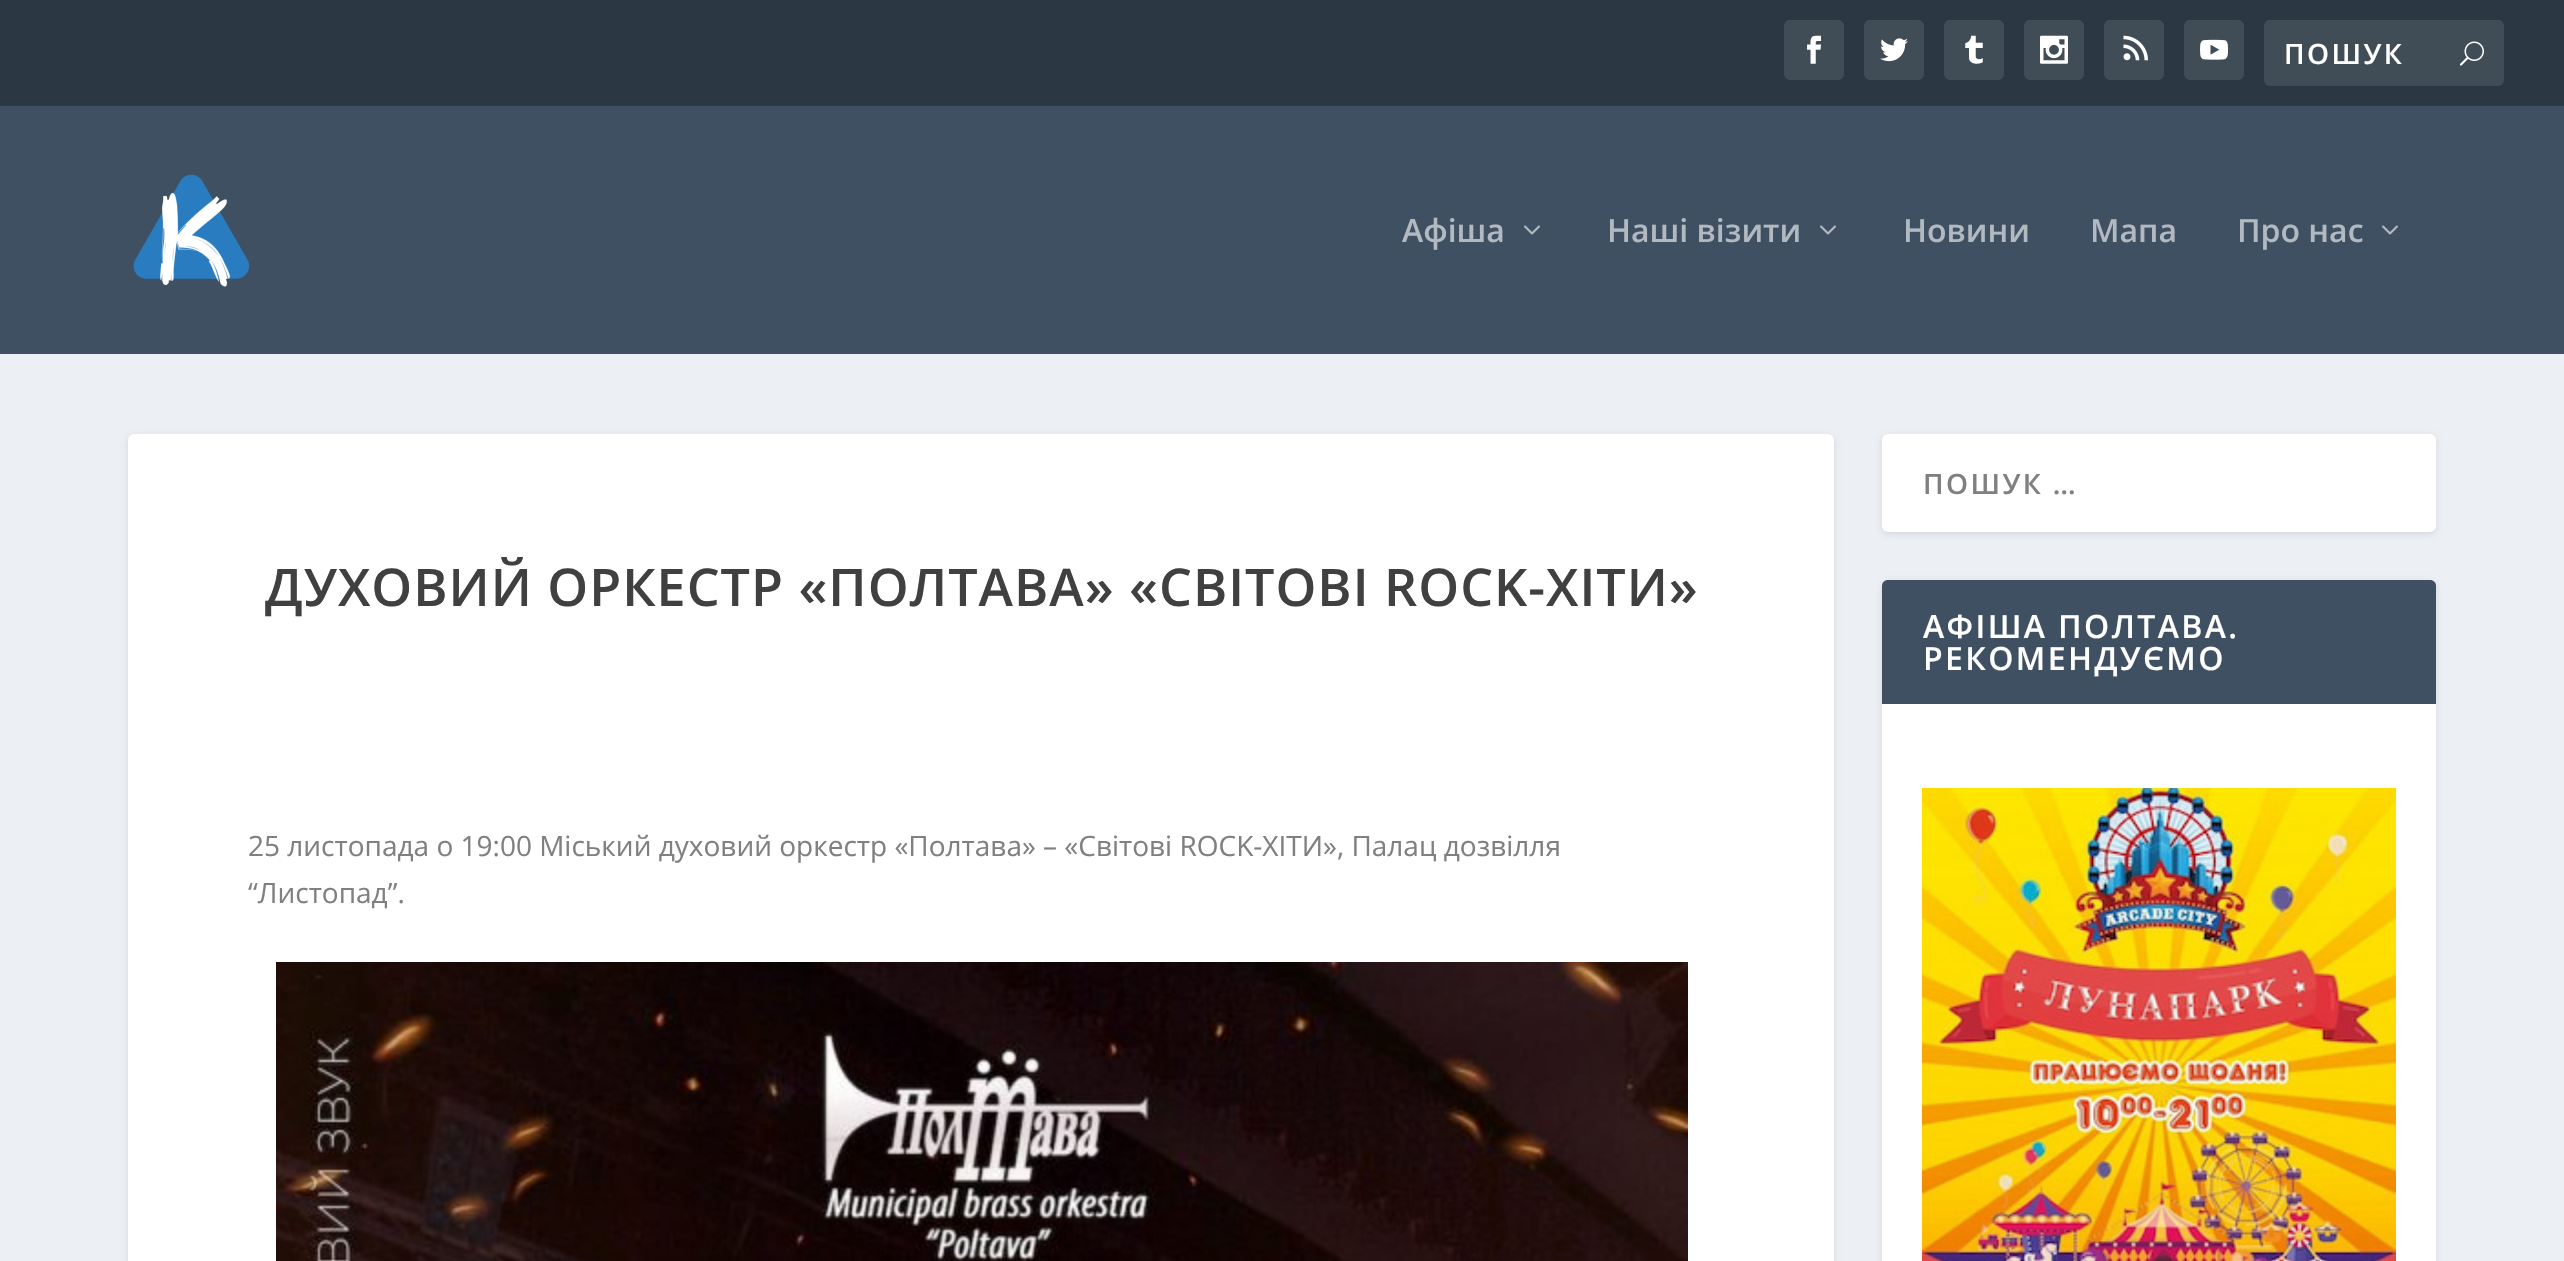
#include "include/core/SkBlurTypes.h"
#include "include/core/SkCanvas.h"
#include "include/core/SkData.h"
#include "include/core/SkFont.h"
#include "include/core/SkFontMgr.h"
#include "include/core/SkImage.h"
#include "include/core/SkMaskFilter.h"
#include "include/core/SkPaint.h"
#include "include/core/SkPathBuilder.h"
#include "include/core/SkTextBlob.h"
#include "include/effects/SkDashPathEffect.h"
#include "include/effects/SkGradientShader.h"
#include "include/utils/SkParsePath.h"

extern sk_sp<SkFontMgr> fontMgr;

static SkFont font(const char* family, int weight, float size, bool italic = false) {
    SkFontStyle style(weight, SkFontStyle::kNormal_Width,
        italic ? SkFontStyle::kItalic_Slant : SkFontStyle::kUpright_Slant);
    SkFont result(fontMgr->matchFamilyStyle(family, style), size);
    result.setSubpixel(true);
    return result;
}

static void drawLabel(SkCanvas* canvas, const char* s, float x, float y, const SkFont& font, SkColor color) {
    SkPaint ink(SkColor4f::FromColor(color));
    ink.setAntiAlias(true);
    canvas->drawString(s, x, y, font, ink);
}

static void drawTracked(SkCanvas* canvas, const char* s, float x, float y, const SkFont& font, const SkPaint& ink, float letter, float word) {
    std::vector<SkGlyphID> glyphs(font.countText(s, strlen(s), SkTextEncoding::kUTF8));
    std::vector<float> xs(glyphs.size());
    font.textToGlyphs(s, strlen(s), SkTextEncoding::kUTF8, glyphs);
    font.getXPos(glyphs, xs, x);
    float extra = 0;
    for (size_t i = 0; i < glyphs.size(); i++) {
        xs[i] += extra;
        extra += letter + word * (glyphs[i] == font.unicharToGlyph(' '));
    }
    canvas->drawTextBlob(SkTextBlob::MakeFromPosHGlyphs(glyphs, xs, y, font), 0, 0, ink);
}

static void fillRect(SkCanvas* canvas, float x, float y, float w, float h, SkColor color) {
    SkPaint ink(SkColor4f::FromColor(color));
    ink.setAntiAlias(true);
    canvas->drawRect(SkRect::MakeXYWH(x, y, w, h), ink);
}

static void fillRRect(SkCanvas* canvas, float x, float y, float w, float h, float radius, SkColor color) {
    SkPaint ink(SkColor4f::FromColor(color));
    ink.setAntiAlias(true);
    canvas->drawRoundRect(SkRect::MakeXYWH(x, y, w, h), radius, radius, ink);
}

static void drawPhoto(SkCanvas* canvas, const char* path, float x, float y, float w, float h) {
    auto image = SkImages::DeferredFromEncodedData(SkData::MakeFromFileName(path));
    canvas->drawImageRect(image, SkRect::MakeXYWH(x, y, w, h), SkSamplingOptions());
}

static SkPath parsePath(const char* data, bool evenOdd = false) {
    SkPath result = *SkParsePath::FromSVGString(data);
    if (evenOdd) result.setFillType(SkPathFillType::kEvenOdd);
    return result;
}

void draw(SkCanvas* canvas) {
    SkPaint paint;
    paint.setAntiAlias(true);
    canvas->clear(0xFFECF0F5);
    fillRect(canvas, 0, 0, 2564, 106, 0xFF2B3843);
    fillRRect(canvas, 1784, 20, 60, 60, 6, 0xFF404C56);
    drawPhoto(canvas, "assets/img1.png", 1807, 35, 15, 29);
    fillRRect(canvas, 1864, 20, 60, 60, 6, 0xFF404C56);
    drawPhoto(canvas, "assets/img2.png", 1880, 38, 28, 24);
    fillRRect(canvas, 1944, 20, 60, 60, 6, 0xFF404C56);
    drawPhoto(canvas, "assets/img3.png", 1965, 35, 18, 29);
    fillRRect(canvas, 2024, 20, 60, 60, 6, 0xFF404C56);
    drawPhoto(canvas, "assets/img4.png", 2040, 35, 28, 29);
    fillRRect(canvas, 2104, 20, 60, 60, 6, 0xFF404C56);
    drawPhoto(canvas, "assets/img5.png", 2123, 35, 25, 26);
    fillRRect(canvas, 2184, 20, 60, 60, 6, 0xFF404C56);
    drawPhoto(canvas, "assets/img6.png", 2200, 39, 28, 21);
    fillRRect(canvas, 2264, 20, 240, 66, 6, 0xFF404C56);
    SkFont font1 = font("Open Sans", 600, 28);
    paint.setColor(0xFFFFFFFF);
    drawTracked(canvas, "ПОШУК", 2284, 64, font1, paint, 2.4f, 0);
    drawPhoto(canvas, "assets/img7.png", 2459, 41, 25, 25);
    fillRect(canvas, 0, 106, 2564, 248, 0xFF3E5061);
    drawPhoto(canvas, "assets/img8.png", 133, 174, 117, 113);
    SkFont font2 = font("Open Sans", 600, 32);
    drawLabel(canvas, "Афіша", 1402, 242, font2, 0xFFB2B9C0);
    drawPhoto(canvas, "assets/img9.png", 1524, 225, 16, 10);
    drawLabel(canvas, "Наші візити", 1607, 242, font2, 0xFFB2B9C0);
    drawPhoto(canvas, "assets/img9.png", 1820, 225, 16, 10);
    drawLabel(canvas, "Новини", 1903, 242, font2, 0xFFB2B9C0);
    drawLabel(canvas, "Мапа", 2090, 242, font2, 0xFFB2B9C0);
    drawLabel(canvas, "Про нас", 2237, 242, font2, 0xFFB2B9C0);
    drawPhoto(canvas, "assets/img9.png", 2382, 225, 16, 10);
    paint.setColor(0x1A000000);
    paint.setMaskFilter(SkMaskFilter::MakeBlur(kNormal_SkBlurStyle, 3));
    canvas->drawRoundRect(SkRect::MakeXYWH(128, 436, 1706, 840), 6, 6, paint);
    paint.setMaskFilter(nullptr);
    fillRRect(canvas, 128, 434, 1706, 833, 6, 0xFFFFFFFF);
    SkFont font3 = font("Open Sans", 600, 52);
    paint.setColor(0xFF404040);
    drawTracked(canvas, "ДУХОВИЙ ОРКЕСТР «ПОЛТАВА» «СВІТОВІ ROCK-ХІТИ»", 265, 606, font3, paint, 1, 0);
    SkFont font4 = font("Open Sans", 400, 28);
    drawLabel(canvas, "25 листопада о 19:00 Міський духовий оркестр «Полтава» – «Світові ROCK-ХІТИ», Палац дозвілля", 248, 856, font4, 0xFF808080);
    drawLabel(canvas, "“Листопад”.", 248, 903, font4, 0xFF808080);
    drawPhoto(canvas, "assets/img10.png", 276, 962, 1412, 299);
    paint.setColor(0x1A000000);
    paint.setMaskFilter(SkMaskFilter::MakeBlur(kNormal_SkBlurStyle, 3));
    canvas->drawRoundRect(SkRect::MakeXYWH(1882, 436, 554, 98), 6, 6, paint);
    paint.setMaskFilter(nullptr);
    fillRRect(canvas, 1882, 434, 554, 98, 6, 0xFFFFFFFF);
    paint.setColor(0xFF808080);
    drawTracked(canvas, "ПОШУК …", 1923, 494, font1, paint, 2.4f, 0);
    paint.setColor(0x1A000000);
    paint.setMaskFilter(SkMaskFilter::MakeBlur(kNormal_SkBlurStyle, 3));
    canvas->drawRoundRect(SkRect::MakeXYWH(1882, 582, 554, 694), 6, 6, paint);
    paint.setMaskFilter(nullptr);
    fillRRect(canvas, 1882, 580, 554, 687, 6, 0xFFFFFFFF);
    paint.setColor(0xFF3E5062);
    canvas->drawPath(parsePath("M1888 580H2430C2433.5 580 2436 582.5 2436 586V704H1882V586C1882 582.5 1884.5 580 1888 580Z"), paint);
    paint.setColor(0xFFFFFFFF);
    drawTracked(canvas, "АФІША ПОЛТАВА.", 1923, 638, font2, paint, 2.4f, 0);
    drawTracked(canvas, "РЕКОМЕНДУЄМО", 1923, 670, font2, paint, 2.4f, 0);
    drawPhoto(canvas, "assets/img11.png", 1922, 788, 474, 473);
}
